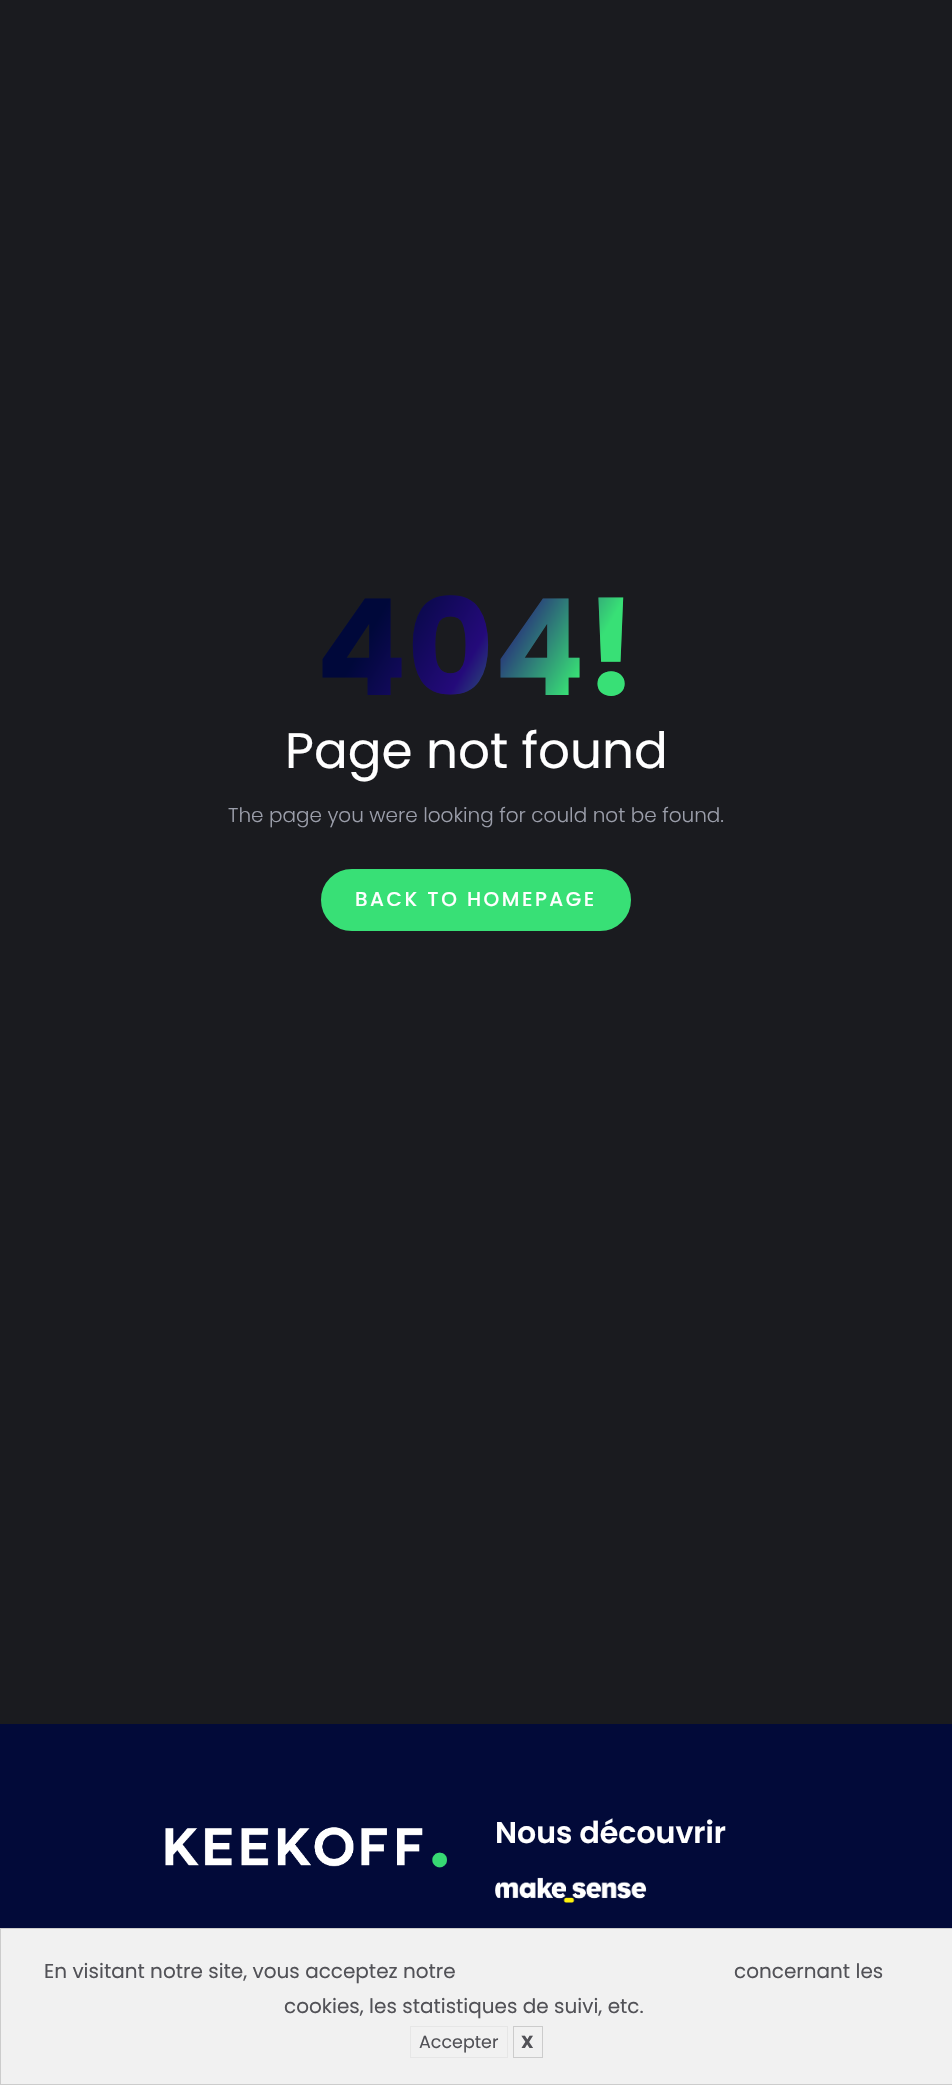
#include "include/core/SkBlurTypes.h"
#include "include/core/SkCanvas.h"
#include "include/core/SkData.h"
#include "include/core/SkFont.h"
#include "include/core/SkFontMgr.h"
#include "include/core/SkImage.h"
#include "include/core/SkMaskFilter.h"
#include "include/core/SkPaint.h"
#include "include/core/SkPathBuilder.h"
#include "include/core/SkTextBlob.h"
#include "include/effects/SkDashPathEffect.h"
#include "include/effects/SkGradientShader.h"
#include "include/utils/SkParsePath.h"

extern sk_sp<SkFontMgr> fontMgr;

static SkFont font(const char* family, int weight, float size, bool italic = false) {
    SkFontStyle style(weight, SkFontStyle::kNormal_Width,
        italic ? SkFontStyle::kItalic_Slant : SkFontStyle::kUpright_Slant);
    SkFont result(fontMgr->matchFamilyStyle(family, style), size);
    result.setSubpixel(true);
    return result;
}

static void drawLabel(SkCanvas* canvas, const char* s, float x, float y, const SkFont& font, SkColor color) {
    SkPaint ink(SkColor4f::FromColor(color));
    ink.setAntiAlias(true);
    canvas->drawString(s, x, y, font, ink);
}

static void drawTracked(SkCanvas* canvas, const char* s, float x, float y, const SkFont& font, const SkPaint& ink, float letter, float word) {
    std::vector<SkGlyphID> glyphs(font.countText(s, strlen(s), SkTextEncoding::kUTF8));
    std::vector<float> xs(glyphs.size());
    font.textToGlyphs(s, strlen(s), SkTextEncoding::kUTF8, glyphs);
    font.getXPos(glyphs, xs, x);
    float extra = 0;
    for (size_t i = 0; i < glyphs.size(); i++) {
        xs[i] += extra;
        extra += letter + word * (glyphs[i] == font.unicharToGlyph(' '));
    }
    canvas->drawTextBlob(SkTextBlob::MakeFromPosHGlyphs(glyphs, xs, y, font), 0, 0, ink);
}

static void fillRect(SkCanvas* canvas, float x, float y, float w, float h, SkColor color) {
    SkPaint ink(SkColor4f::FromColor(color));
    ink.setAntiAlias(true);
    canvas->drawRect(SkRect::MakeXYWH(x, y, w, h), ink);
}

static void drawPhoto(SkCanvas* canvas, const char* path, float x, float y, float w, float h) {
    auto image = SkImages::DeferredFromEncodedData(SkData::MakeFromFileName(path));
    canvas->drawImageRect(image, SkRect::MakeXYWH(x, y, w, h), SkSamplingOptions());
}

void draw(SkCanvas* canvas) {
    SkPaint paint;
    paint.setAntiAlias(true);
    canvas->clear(0xFF1A1B1F);
    SkFont font1 = font("Poppins", 700, 134);
    {
        const SkColor colors[] = {0xFF00083A, 0xFF240A7A, 0xFF38E076};
        const float stops[] = {0.21f, 0.5f, 0.8f};
        const SkPoint ends[] = {{327, 562}, {625, 735}};
        paint.setShader(SkGradientShader::MakeLinear(ends, colors, stops, 3, SkTileMode::kClamp));
        paint.setAlpha(255);
    }
    canvas->drawString("404!", 316, 695, font1, paint);
    SkFont font2 = font("Poppins", 400, 50);
    drawLabel(canvas, "Page not found", 285, 768, font2, 0xFFFFFFFF);
    SkFont font3 = font("Poppins", 300, 20);
    drawLabel(canvas, "The page you were looking for could not be found.", 228, 822, font3, 0xFF9B9EAA);
    paint.setShader(nullptr);
    paint.setColor(0xFF38E076);
    canvas->drawRoundRect(SkRect::MakeXYWH(322.5f, 870.5f, 307, 59), 29.5f, 29.5f, paint);
    paint.setStroke(true);
    paint.setStrokeWidth(3);
    canvas->drawRoundRect(SkRect::MakeXYWH(322.5f, 870.5f, 307, 59), 29.5f, 29.5f, paint);
    SkFont font4 = font("Poppins", 500, 20);
    paint.setStroke(false);
    paint.setColor(0xFFFFFFFF);
    drawTracked(canvas, "BACK TO HOMEPAGE", 355, 906, font4, paint, 2.5f, 0);
    fillRect(canvas, 0, 1724, 952, 204, 0xFF020A39);
    drawPhoto(canvas, "assets/img1.png", 165, 1827, 282, 41);
    SkFont font5 = font("Poppins", 600, 30);
    drawLabel(canvas, "Nous découvrir", 495, 1843, font5, 0xFFFFFFFF);
    drawPhoto(canvas, "assets/img2.png", 495, 1877, 152, 26);
    paint.setColor(0xFFF1F1F1);
    canvas->drawRect(SkRect::MakeXYWH(0.5f, 1928.5f, 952, 156), paint);
    paint.setStroke(true);
    paint.setStrokeWidth(1);
    paint.setColor(0xFFCCCCCC);
    canvas->drawRect(SkRect::MakeXYWH(0.5f, 1928.5f, 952, 156), paint);
    SkFont font6 = font("Poppins", 400, 20);
    drawLabel(canvas, "En visitant notre site, vous acceptez notre", 44, 1978, font6, 0xFF525257);
    drawLabel(canvas, "concernant les", 734, 1978, font6, 0xFF525257);
    drawLabel(canvas, "cookies, les statistiques de suivi, etc.", 284, 2013, font6, 0xFF525257);
    paint.setColor(0xFFE6E6E6);
    canvas->drawRect(SkRect::MakeXYWH(410.5f, 2026.5f, 97, 31), paint);
    SkFont font7 = font("Poppins", 400, 17.5f);
    drawLabel(canvas, "Accepter", 419, 2048, font7, 0xFF525257);
    paint.setColor(0xFFCCCCCC);
    canvas->drawRect(SkRect::MakeXYWH(513.5f, 2026.5f, 29, 31), paint);
    SkFont font8 = font("Poppins", 700, 17.5f);
    drawLabel(canvas, "X", 521, 2048, font8, 0xFF525257);
}
